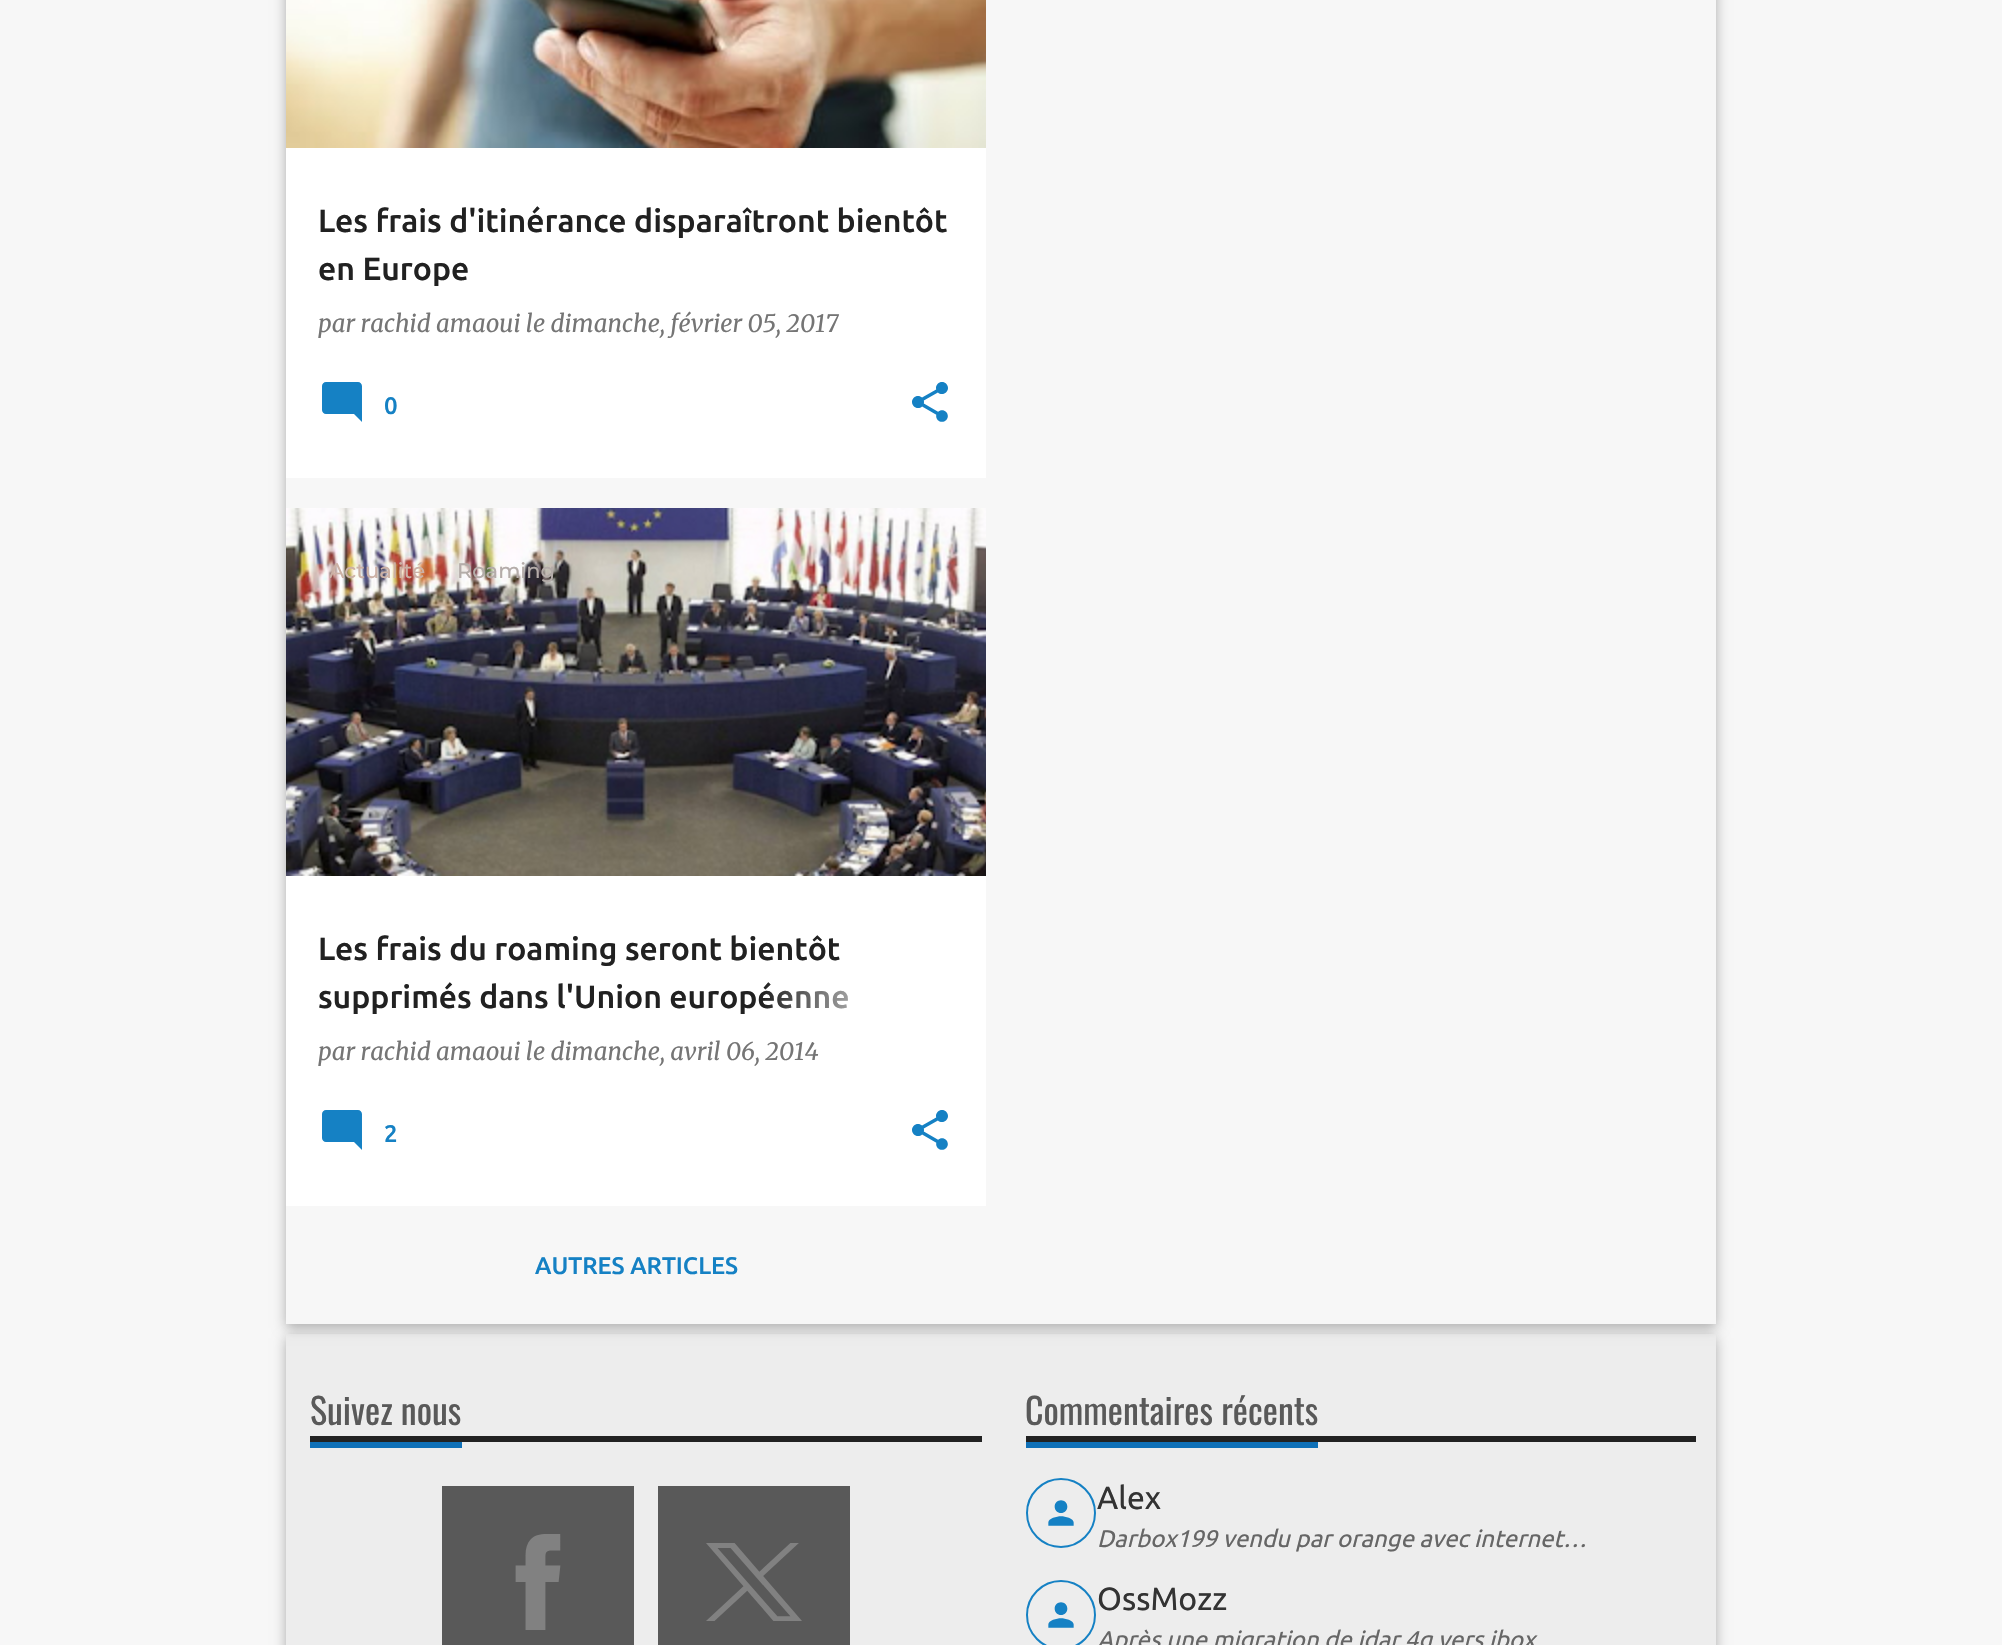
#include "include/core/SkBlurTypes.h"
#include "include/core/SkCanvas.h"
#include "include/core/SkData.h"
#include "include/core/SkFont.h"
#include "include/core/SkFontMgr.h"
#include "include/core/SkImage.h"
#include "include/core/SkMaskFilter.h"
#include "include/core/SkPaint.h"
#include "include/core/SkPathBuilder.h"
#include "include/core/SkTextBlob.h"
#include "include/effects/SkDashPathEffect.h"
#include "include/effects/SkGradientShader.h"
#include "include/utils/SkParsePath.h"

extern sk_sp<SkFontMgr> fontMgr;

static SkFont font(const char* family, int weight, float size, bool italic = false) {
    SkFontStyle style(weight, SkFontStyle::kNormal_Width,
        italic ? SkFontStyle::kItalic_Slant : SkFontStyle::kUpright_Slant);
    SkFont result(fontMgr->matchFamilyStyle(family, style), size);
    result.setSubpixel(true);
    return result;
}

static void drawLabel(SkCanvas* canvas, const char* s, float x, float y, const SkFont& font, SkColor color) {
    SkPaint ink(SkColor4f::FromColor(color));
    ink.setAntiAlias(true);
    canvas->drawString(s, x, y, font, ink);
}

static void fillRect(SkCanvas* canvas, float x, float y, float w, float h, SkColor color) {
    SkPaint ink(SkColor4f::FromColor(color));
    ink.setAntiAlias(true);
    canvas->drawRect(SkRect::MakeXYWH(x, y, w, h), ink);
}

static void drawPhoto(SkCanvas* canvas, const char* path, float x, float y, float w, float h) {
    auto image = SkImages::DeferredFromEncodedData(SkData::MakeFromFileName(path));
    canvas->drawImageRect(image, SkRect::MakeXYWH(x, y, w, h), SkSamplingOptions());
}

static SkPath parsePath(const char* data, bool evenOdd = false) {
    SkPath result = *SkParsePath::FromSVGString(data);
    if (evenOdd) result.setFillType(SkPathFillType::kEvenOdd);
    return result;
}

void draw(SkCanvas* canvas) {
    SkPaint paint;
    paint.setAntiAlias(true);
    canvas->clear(0xFFF7F7F7);
    canvas->save();
    canvas->clipPath(parsePath("M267 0H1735V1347H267ZM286-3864H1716V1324H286Z", true), true);
    paint.setColor(0x4D000000);
    paint.setMaskFilter(SkMaskFilter::MakeBlur(kNormal_SkBlurStyle, 6));
    canvas->drawRect(SkRect::MakeXYWH(286, -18, 1430, 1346), paint);
    paint.setMaskFilter(nullptr);
    canvas->restore();
    fillRect(canvas, 286, 148, 700, 330, 0xFFFFFFFF);
    drawPhoto(canvas, "assets/img1.png", 286, 0, 700, 148);
    SkFont font1 = font("Ubuntu", 500, 32);
    drawLabel(canvas, "Les frais d'itinérance disparaîtront bientôt", 318, 232, font1, 0xFF212121);
    drawLabel(canvas, "en Europe", 318, 280, font1, 0xFF212121);
    SkFont font2 = font("Merriweather", 400, 24, true);
    drawLabel(canvas, "par rachid amaoui le dimanche, février 05, 2017", 318, 332, font2, 0xFF757575);
    drawPhoto(canvas, "assets/img2.png", 322, 382, 40, 40);
    SkFont font3 = font("Ubuntu", 500, 24);
    drawLabel(canvas, "0", 384, 414, font3, 0xFF1581C4);
    drawPhoto(canvas, "assets/img3.png", 912, 382, 36, 40);
    fillRect(canvas, 286, 876, 700, 330, 0xFFFFFFFF);
    drawPhoto(canvas, "assets/img4.png", 286, 508, 700, 368);
    SkFont font4 = font("Montserrat", 500, 21);
    drawLabel(canvas, "Actualité", 329, 578, font4, 0xFFCCB1A5);
    drawLabel(canvas, "Roaming", 457, 578, font4, 0xFFB4ACA9);
    drawLabel(canvas, "par rachid amaoui le dimanche, avril 06, 2014", 318, 1060, font2, 0xFF757575);
    drawLabel(canvas, "Les frais du roaming seront bientôt", 318, 960, font1, 0xFF212121);
    drawLabel(canvas, "supprimés dans l'Union européenne", 318, 1008, font1, 0xFF212121);
    {
        const SkColor colors[] = {0xFFFFFFFF, 0xFFFFFFFF, 0x00FFFFFF};
        const float stops[] = {0, 0.2f, 1};
        const SkPoint ends[] = {{954, 996}, {762, 996}};
        paint.setShader(SkGradientShader::MakeLinear(ends, colors, stops, 3, SkTileMode::kClamp));
        paint.setAlpha(255);
    }
    canvas->drawRect(SkRect::MakeXYWH(765, 982, 83, 27), paint);
    drawPhoto(canvas, "assets/img2.png", 322, 1110, 40, 40);
    drawLabel(canvas, "2", 384, 1142, font3, 0xFF1581C4);
    drawPhoto(canvas, "assets/img3.png", 912, 1110, 36, 40);
    drawLabel(canvas, "AUTRES ARTICLES", 535, 1274, font3, 0xFF1581C4);
    canvas->save();
    canvas->clipPath(parsePath("M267 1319H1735V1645H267ZM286 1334H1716V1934H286Z", true), true);
    paint.setShader(nullptr);
    paint.setColor(0x4D000000);
    paint.setMaskFilter(SkMaskFilter::MakeBlur(kNormal_SkBlurStyle, 6));
    canvas->drawRect(SkRect::MakeXYWH(286, 1338, 1430, 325), paint);
    paint.setMaskFilter(nullptr);
    canvas->restore();
    fillRect(canvas, 286, 1334, 1430, 311, 0x2BBFBFBF);
    fillRect(canvas, 310, 1436, 672, 6, 0xFF222222);
    SkFont font5 = font("Oswald", 400, 36);
    drawLabel(canvas, "Suivez nous", 310, 1425, font5, 0xFF595959);
    fillRect(canvas, 310, 1442, 152, 6, 0xFF0F70B7);
    fillRect(canvas, 442, 1486, 192, 159, 0xFF595959);
    drawPhoto(canvas, "assets/img5.png", 515, 1534, 46, 96);
    fillRect(canvas, 658, 1486, 192, 159, 0xFF595959);
    drawPhoto(canvas, "assets/img6.png", 706, 1543, 96, 78);
    fillRect(canvas, 1026, 1436, 670, 6, 0xFF222222);
    drawLabel(canvas, "Commentaires récents", 1025, 1425, font5, 0xFF595959);
    fillRect(canvas, 1026, 1442, 292, 6, 0xFF0F70B7);
    paint.setStroke(true);
    paint.setStrokeWidth(2);
    paint.setColor(0xFF1581C4);
    canvas->drawCircle(1061, 1513, 34, paint);
    drawPhoto(canvas, "assets/img7.png", 1048, 1500, 26, 26);
    SkFont font6 = font("Ubuntu", 400, 32);
    drawLabel(canvas, "Alex", 1097, 1509, font6, 0xFF333333);
    SkFont font7 = font("Ubuntu", 400, 24, true);
    drawLabel(canvas, "Darbox199 vendu par orange avec internet…", 1097, 1547, font7, 0xFF666666);
    canvas->drawCircle(1061, 1615, 34, paint);
    drawPhoto(canvas, "assets/img7.png", 1048, 1602, 26, 26);
    drawLabel(canvas, "OssMozz", 1097, 1610, font6, 0xFF333333);
    drawLabel(canvas, "Après une migration de idar 4g vers ibox…", 1097, 1648, font7, 0xFF666666);
}
